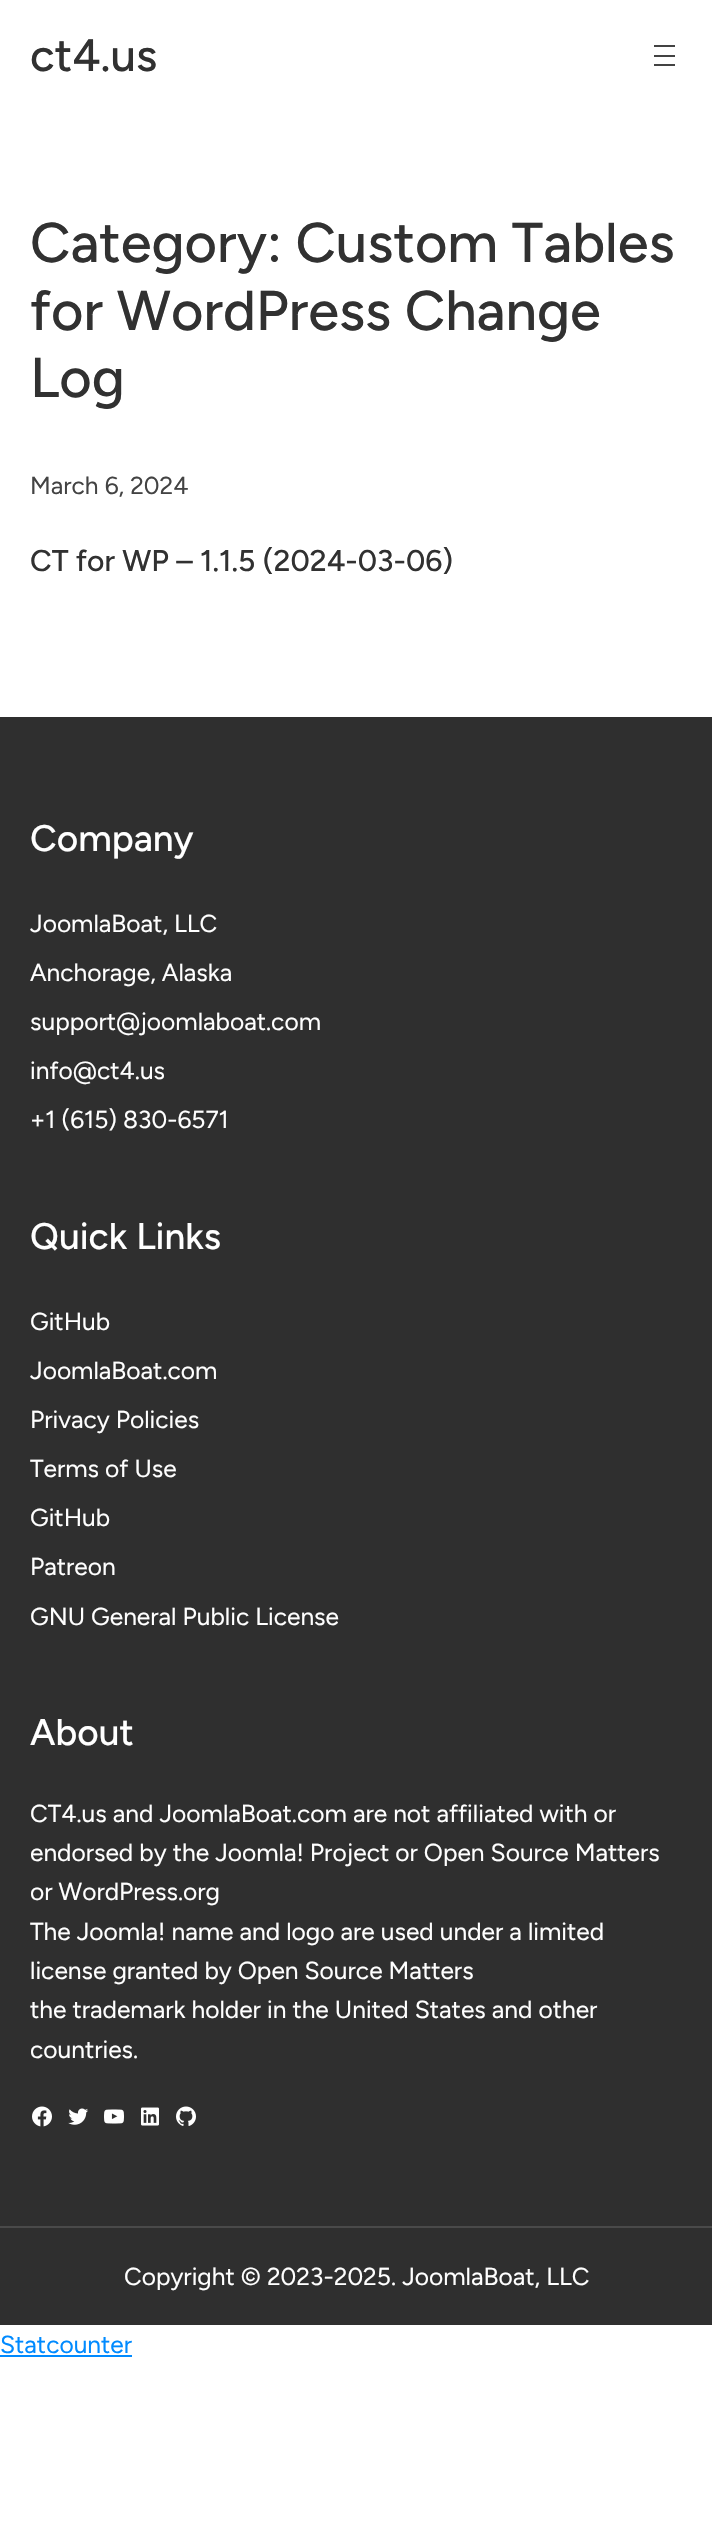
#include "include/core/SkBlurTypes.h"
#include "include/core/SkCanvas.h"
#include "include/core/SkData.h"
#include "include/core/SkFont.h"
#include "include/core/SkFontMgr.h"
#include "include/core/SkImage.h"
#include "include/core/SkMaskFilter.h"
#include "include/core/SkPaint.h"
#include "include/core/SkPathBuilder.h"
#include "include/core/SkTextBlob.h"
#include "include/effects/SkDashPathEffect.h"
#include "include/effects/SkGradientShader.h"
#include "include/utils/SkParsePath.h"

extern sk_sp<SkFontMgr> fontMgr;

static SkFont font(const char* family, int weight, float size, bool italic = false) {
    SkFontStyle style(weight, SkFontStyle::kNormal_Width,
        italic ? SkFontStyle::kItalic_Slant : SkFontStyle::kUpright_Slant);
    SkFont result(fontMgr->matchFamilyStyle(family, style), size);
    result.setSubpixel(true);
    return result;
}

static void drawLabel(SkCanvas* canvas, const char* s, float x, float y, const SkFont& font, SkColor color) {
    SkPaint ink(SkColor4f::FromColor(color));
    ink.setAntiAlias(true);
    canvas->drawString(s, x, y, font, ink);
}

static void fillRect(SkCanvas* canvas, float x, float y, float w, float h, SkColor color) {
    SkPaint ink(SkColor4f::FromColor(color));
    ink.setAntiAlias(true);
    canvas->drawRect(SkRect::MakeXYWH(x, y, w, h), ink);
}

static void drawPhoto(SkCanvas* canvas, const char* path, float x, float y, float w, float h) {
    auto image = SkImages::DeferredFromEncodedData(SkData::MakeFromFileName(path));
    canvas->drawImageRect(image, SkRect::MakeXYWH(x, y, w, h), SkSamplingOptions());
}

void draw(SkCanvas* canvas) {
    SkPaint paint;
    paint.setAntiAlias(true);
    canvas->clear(0xFFFFFFFF);
    SkFont font1 = font("Figtree", 500, 45.5f);
    drawLabel(canvas, "ct4.us", 30, 71, font1, 0xFF313131);
    fillRect(canvas, 654, 45, 21, 2, 0xFF434343);
    fillRect(canvas, 654, 55, 21, 2, 0xFF434343);
    fillRect(canvas, 654, 64, 21, 2, 0xFF434343);
    SkFont font2 = font("Figtree", 500, 56);
    drawLabel(canvas, "Category: Custom Tables", 30, 262, font2, 0xFF313131);
    drawLabel(canvas, "for WordPress Change", 30, 330, font2, 0xFF313131);
    drawLabel(canvas, "Log", 30, 397, font2, 0xFF313131);
    SkFont font3 = font("Figtree", 400, 24.55f);
    drawLabel(canvas, "March 6, 2024", 30, 494, font3, 0xFF434343);
    SkFont font4 = font("Figtree", 500, 30);
    drawLabel(canvas, "CT for WP – 1.1.5 (2024-03-06)", 30, 571, font4, 0xFF313131);
    fillRect(canvas, 0, 717, 712, 1509, 0xFF2F2F2F);
    SkFont font5 = font("Figtree", 500, 37);
    drawLabel(canvas, "Company", 30, 851, font5, 0xFFFFFFFF);
    drawLabel(canvas, "JoomlaBoat, LLC", 30, 932, font3, 0xFFFFFFFF);
    drawLabel(canvas, "Anchorage, Alaska", 30, 981, font3, 0xFFFFFFFF);
    drawLabel(canvas, "support@joomlaboat.com", 30, 1030, font3, 0xFFFFFFFF);
    drawLabel(canvas, "info@ct4.us", 30, 1079, font3, 0xFFFFFFFF);
    drawLabel(canvas, "+1 (615) 830-6571", 30, 1128, font3, 0xFFFFFFFF);
    drawLabel(canvas, "Quick Links", 30, 1249, font5, 0xFFFFFFFF);
    drawLabel(canvas, "GitHub", 30, 1330, font3, 0xFFFFFFFF);
    drawLabel(canvas, "JoomlaBoat.com", 30, 1379, font3, 0xFFFFFFFF);
    drawLabel(canvas, "Privacy Policies", 30, 1428, font3, 0xFFFFFFFF);
    drawLabel(canvas, "Terms of Use", 30, 1477, font3, 0xFFFFFFFF);
    drawLabel(canvas, "GitHub", 30, 1526, font3, 0xFFFFFFFF);
    drawLabel(canvas, "Patreon", 30, 1575, font3, 0xFFFFFFFF);
    drawLabel(canvas, "GNU General Public License", 30, 1625, font3, 0xFFFFFFFF);
    drawLabel(canvas, "About", 30, 1745, font5, 0xFFFFFFFF);
    drawLabel(canvas, "CT4.us and JoomlaBoat.com are not affiliated with or", 30, 1822, font3, 0xFFFFFFFF);
    drawLabel(canvas, "endorsed by the Joomla! Project or Open Source Matters", 30, 1861, font3, 0xFFFFFFFF);
    drawLabel(canvas, "or WordPress.org", 30, 1900, font3, 0xFFFFFFFF);
    drawLabel(canvas, "The Joomla! name and logo are used under a limited", 30, 1940, font3, 0xFFFFFFFF);
    drawLabel(canvas, "license granted by Open Source Matters", 30, 1979, font3, 0xFFFFFFFF);
    drawLabel(canvas, "the trademark holder in the United States and other", 30, 2018, font3, 0xFFFFFFFF);
    drawLabel(canvas, "countries.", 30, 2058, font3, 0xFFFFFFFF);
    drawPhoto(canvas, "assets/img1.png", 32, 2106, 20, 21);
    drawPhoto(canvas, "assets/img2.png", 68, 2108, 21, 17);
    drawPhoto(canvas, "assets/img3.png", 104, 2109, 20, 15);
    drawPhoto(canvas, "assets/img4.png", 141, 2107, 18, 19);
    drawPhoto(canvas, "assets/img5.png", 176, 2106, 20, 20);
    fillRect(canvas, 0, 2228, 712, 97, 0xFF2F2F2F);
    fillRect(canvas, 0, 2226, 712, 2, 0xFF4A4A4A);
    drawLabel(canvas, "Copyright © 2023-2025. JoomlaBoat, LLC", 124, 2285, font3, 0xFFFFFFFF);
    drawLabel(canvas, "Statcounter", 0, 2353, font3, 0xFF008AFF);
    fillRect(canvas, 0, 2355, 132, 2, 0xFF008AFF);
}
